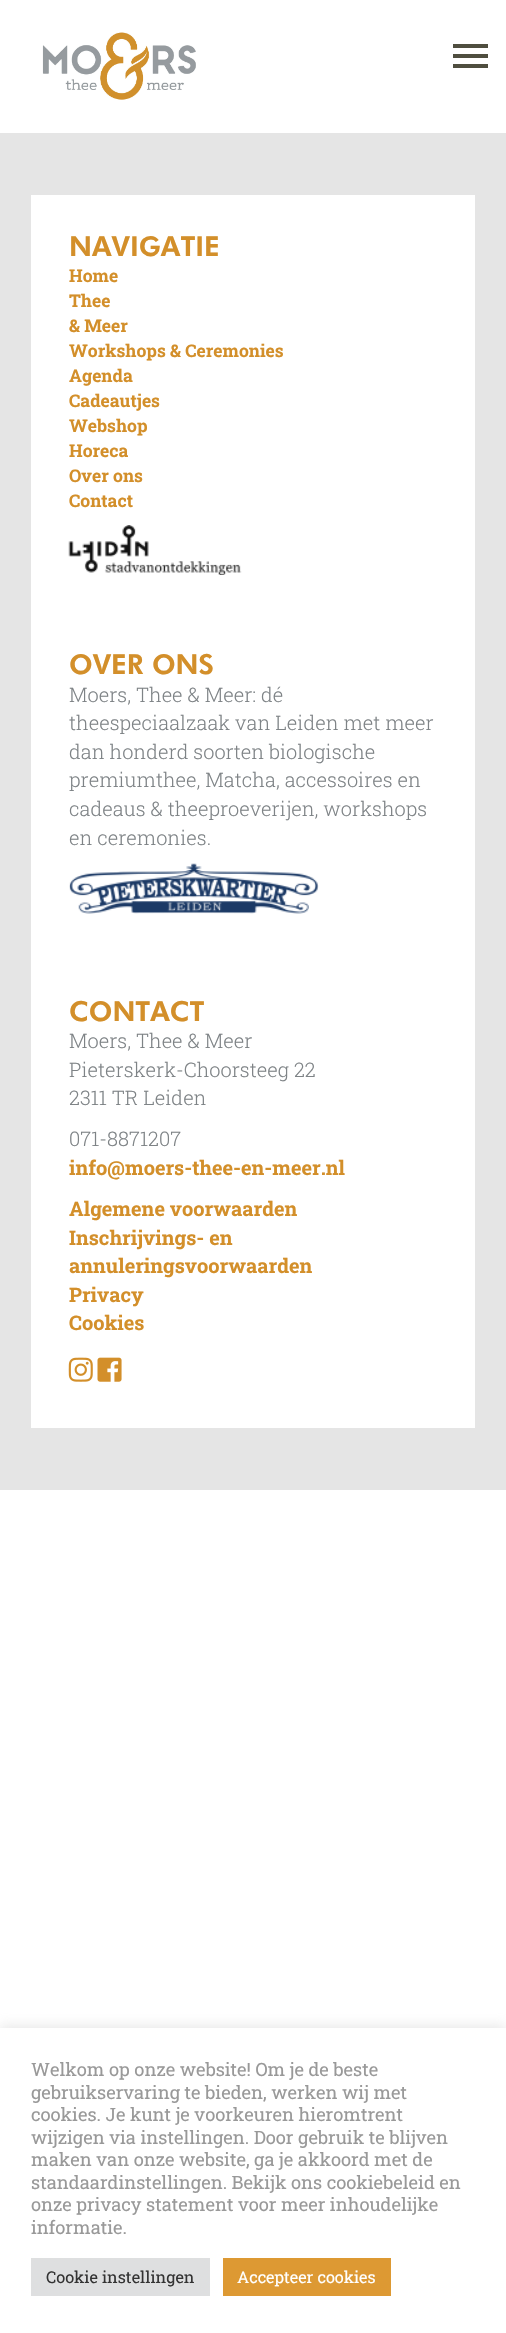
#include "include/core/SkBlurTypes.h"
#include "include/core/SkCanvas.h"
#include "include/core/SkData.h"
#include "include/core/SkFont.h"
#include "include/core/SkFontMgr.h"
#include "include/core/SkImage.h"
#include "include/core/SkMaskFilter.h"
#include "include/core/SkPaint.h"
#include "include/core/SkPathBuilder.h"
#include "include/core/SkTextBlob.h"
#include "include/effects/SkDashPathEffect.h"
#include "include/effects/SkGradientShader.h"
#include "include/utils/SkParsePath.h"

extern sk_sp<SkFontMgr> fontMgr;

static SkFont font(const char* family, int weight, float size, bool italic = false) {
    SkFontStyle style(weight, SkFontStyle::kNormal_Width,
        italic ? SkFontStyle::kItalic_Slant : SkFontStyle::kUpright_Slant);
    SkFont result(fontMgr->matchFamilyStyle(family, style), size);
    result.setSubpixel(true);
    return result;
}

static void drawLabel(SkCanvas* canvas, const char* s, float x, float y, const SkFont& font, SkColor color) {
    SkPaint ink(SkColor4f::FromColor(color));
    ink.setAntiAlias(true);
    canvas->drawString(s, x, y, font, ink);
}

static void fillRect(SkCanvas* canvas, float x, float y, float w, float h, SkColor color) {
    SkPaint ink(SkColor4f::FromColor(color));
    ink.setAntiAlias(true);
    canvas->drawRect(SkRect::MakeXYWH(x, y, w, h), ink);
}

static void drawPhoto(SkCanvas* canvas, const char* path, float x, float y, float w, float h) {
    auto image = SkImages::DeferredFromEncodedData(SkData::MakeFromFileName(path));
    canvas->drawImageRect(image, SkRect::MakeXYWH(x, y, w, h), SkSamplingOptions());
}

void draw(SkCanvas* canvas) {
    SkPaint paint;
    paint.setAntiAlias(true);
    canvas->clear(0xFFFFFFFF);
    drawPhoto(canvas, "assets/img1.png", 42, 32, 154, 68);
    fillRect(canvas, 453, 44, 35, 4, 0xFF4F4E3F);
    fillRect(canvas, 453, 54, 35, 4, 0xFF4F4E3F);
    fillRect(canvas, 453, 64, 35, 4, 0xFF4F4E3F);
    fillRect(canvas, 0, 133, 506, 1357, 0xFFE5E5E5);
    fillRect(canvas, 31, 195, 444, 1233, 0xFFFFFFFF);
    SkFont font1 = font("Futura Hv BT", 900, 27.5f);
    drawLabel(canvas, "NAVIGATIE", 69, 256, font1, 0xFFD38F2A);
    SkFont font2 = font("Roboto Slab", 700, 17.5f);
    drawLabel(canvas, "Home", 69, 282, font2, 0xFFD38F2A);
    drawLabel(canvas, "Thee", 69, 307, font2, 0xFFD38F2A);
    drawLabel(canvas, "& Meer", 69, 332, font2, 0xFFD38F2A);
    drawLabel(canvas, "Workshops & Ceremonies", 69, 357, font2, 0xFFD38F2A);
    drawLabel(canvas, "Agenda", 69, 382, font2, 0xFFD38F2A);
    drawLabel(canvas, "Cadeautjes", 69, 407, font2, 0xFFD38F2A);
    drawLabel(canvas, "Webshop", 69, 432, font2, 0xFFD38F2A);
    drawLabel(canvas, "Horeca", 69, 457, font2, 0xFFD38F2A);
    drawLabel(canvas, "Over ons", 69, 482, font2, 0xFFD38F2A);
    drawLabel(canvas, "Contact", 69, 507, font2, 0xFFD38F2A);
    drawPhoto(canvas, "assets/img2.png", 68, 525, 174, 50);
    drawLabel(canvas, "OVER ONS", 69, 674, font1, 0xFFD38F2A);
    SkFont font3 = font("Roboto Slab", 300, 20);
    drawLabel(canvas, "Moers, Thee & Meer: dé", 69, 702, font3, 0xFF7E8386);
    drawLabel(canvas, "theespeciaalzaak van Leiden met meer", 69, 730, font3, 0xFF7E8386);
    drawLabel(canvas, "dan honderd soorten biologische", 69, 759, font3, 0xFF7E8386);
    drawLabel(canvas, "premiumthee, Matcha, accessoires en", 69, 787, font3, 0xFF7E8386);
    drawLabel(canvas, "cadeaus & theeproeverijen, workshops", 69, 816, font3, 0xFF7E8386);
    drawLabel(canvas, "en ceremonies.", 69, 845, font3, 0xFF7E8386);
    drawPhoto(canvas, "assets/img3.png", 69, 863, 250, 51);
    drawLabel(canvas, "CONTACT", 69, 1021, font1, 0xFFD38F2A);
    drawLabel(canvas, "Moers, Thee & Meer", 69, 1048, font3, 0xFF7E8386);
    drawLabel(canvas, "Pieterskerk-Choorsteeg 22", 69, 1077, font3, 0xFF7E8386);
    drawLabel(canvas, "2311 TR Leiden", 69, 1105, font3, 0xFF7E8386);
    drawLabel(canvas, "071-8871207", 69, 1146, font3, 0xFF7E8386);
    SkFont font4 = font("Roboto Slab", 700, 20);
    drawLabel(canvas, "info@moers-thee-en-meer.nl", 69, 1175, font4, 0xFFD38F2A);
    drawLabel(canvas, "Algemene voorwaarden", 69, 1216, font4, 0xFFD38F2A);
    drawLabel(canvas, "Inschrijvings- en", 69, 1245, font4, 0xFFD38F2A);
    drawLabel(canvas, "annuleringsvoorwaarden", 69, 1273, font4, 0xFFD38F2A);
    drawLabel(canvas, "Privacy", 69, 1302, font4, 0xFFD38F2A);
    drawLabel(canvas, "Cookies", 69, 1330, font4, 0xFFD38F2A);
    drawPhoto(canvas, "assets/img4.png", 68, 1357, 25, 25);
    drawPhoto(canvas, "assets/img5.png", 97, 1357, 25, 25);
    paint.setColor(0x4DACABAB);
    paint.setMaskFilter(SkMaskFilter::MakeBlur(kNormal_SkBlurStyle, 6));
    canvas->drawRect(SkRect::MakeXYWH(0, 2026, 506, 307), paint);
    paint.setMaskFilter(nullptr);
    fillRect(canvas, 0, 2028, 506, 305, 0xFFFFFFFF);
    SkFont font5 = font("Roboto Slab", 400, 18.3f);
    drawLabel(canvas, "Welkom op onze website! Om je de beste", 31, 2076, font5, 0xFF999999);
    drawLabel(canvas, "gebruikservaring te bieden, werken wij met", 31, 2099, font5, 0xFF999999);
    drawLabel(canvas, "cookies. Je kunt je voorkeuren hieromtrent", 31, 2121, font5, 0xFF999999);
    drawLabel(canvas, "wijzigen via instellingen. Door gebruik te blijven", 31, 2144, font5, 0xFF999999);
    drawLabel(canvas, "maken van onze website, ga je akkoord met de", 31, 2166, font5, 0xFF999999);
    drawLabel(canvas, "standaardinstellingen. Bekijk ons cookiebeleid en", 31, 2189, font5, 0xFF999999);
    drawLabel(canvas, "onze privacy statement voor meer inhoudelijke", 31, 2211, font5, 0xFF999999);
    drawLabel(canvas, "informatie.", 31, 2234, font5, 0xFF999999);
    fillRect(canvas, 31, 2258, 179, 38, 0xFFDEDFE0);
    SkFont font6 = font("Roboto Slab", 400, 16.25f);
    drawLabel(canvas, "Cookie instellingen", 46, 2283, font6, 0xFF333333);
    fillRect(canvas, 223, 2258, 168, 38, 0xFFDD9933);
    drawLabel(canvas, "Accepteer cookies", 237, 2283, font6, 0xFFFFFFFF);
}
